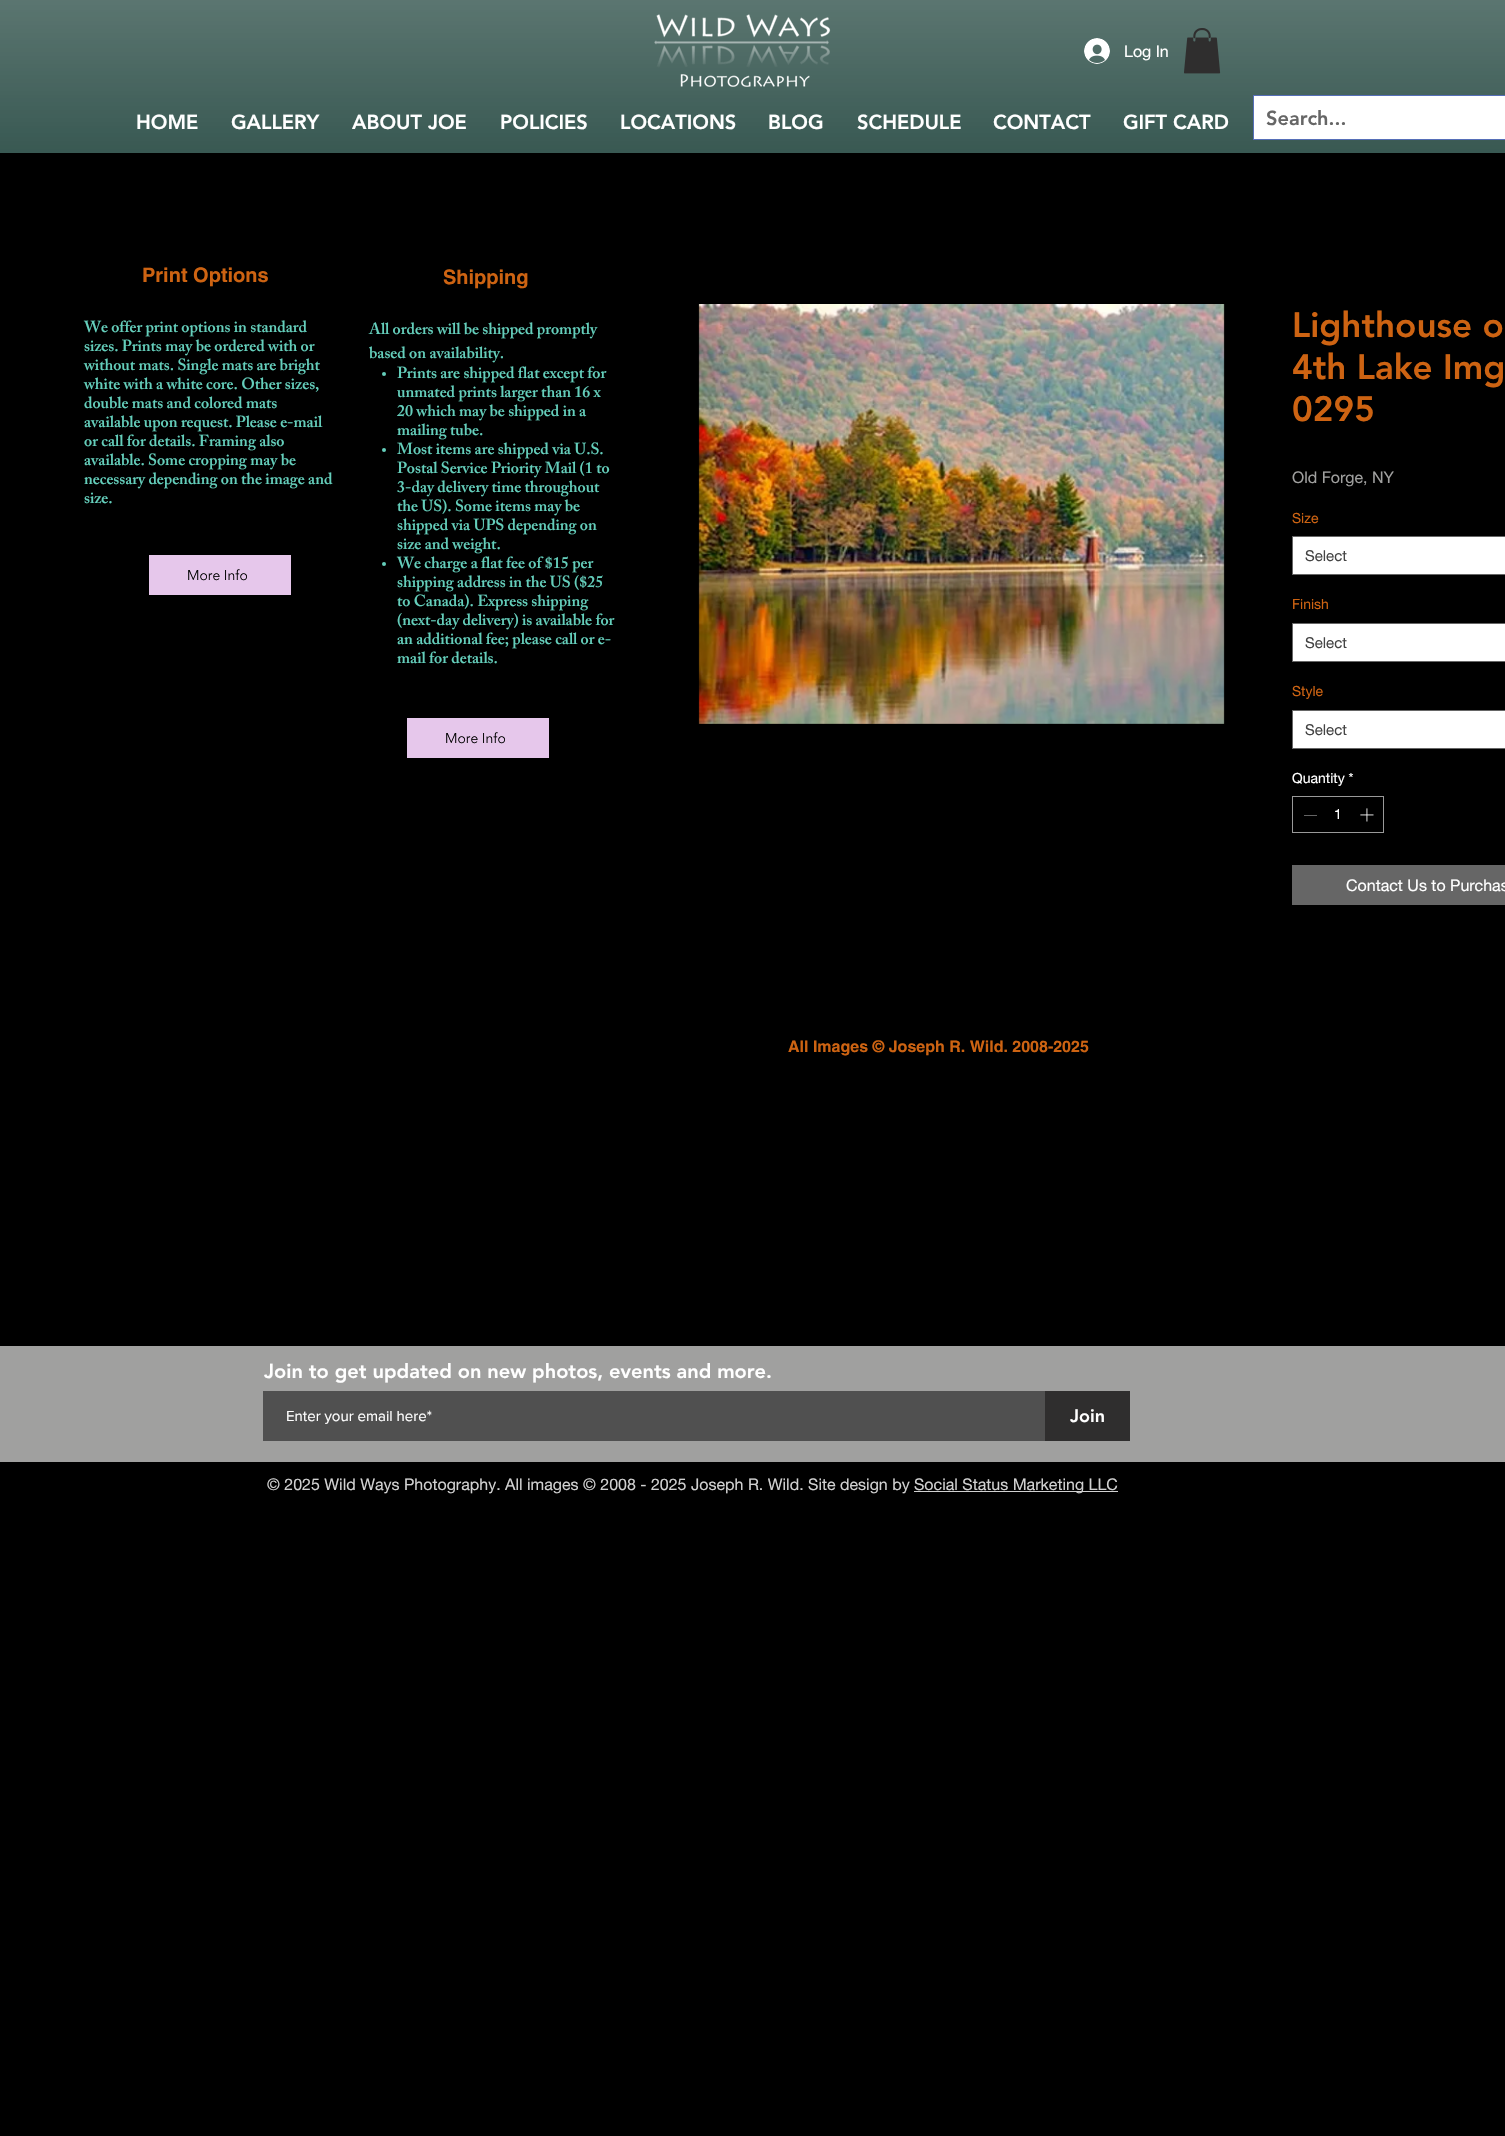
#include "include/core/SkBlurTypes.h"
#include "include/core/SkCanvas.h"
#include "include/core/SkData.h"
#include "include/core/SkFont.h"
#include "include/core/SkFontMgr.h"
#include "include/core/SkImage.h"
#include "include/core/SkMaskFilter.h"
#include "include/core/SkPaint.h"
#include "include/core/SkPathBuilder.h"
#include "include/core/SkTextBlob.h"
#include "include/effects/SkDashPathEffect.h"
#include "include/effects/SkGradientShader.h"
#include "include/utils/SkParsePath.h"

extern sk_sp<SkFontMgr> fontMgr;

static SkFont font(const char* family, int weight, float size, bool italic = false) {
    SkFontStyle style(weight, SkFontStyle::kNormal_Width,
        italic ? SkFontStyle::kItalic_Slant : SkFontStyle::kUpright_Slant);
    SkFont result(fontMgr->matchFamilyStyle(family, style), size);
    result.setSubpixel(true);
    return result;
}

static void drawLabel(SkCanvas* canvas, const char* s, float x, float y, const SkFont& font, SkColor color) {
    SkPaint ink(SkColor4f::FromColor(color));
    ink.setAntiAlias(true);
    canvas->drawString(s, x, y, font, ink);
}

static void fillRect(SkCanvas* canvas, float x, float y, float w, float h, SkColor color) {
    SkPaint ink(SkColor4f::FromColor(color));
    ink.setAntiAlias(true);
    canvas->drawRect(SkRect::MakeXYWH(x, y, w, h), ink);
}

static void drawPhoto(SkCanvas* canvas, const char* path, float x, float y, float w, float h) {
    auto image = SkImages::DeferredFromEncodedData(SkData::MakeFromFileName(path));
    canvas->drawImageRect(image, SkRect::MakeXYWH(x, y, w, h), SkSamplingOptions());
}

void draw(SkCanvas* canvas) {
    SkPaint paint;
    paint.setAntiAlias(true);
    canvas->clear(0xFF000000);
    fillRect(canvas, 0, 0, 1505, 153, 0xFF21453E);
    drawPhoto(canvas, "assets/img1.png", 0, 0, 1505, 153);
    drawPhoto(canvas, "assets/img2.png", 654, 14, 177, 73);
    drawPhoto(canvas, "assets/img3.png", 1084, 38, 26, 26);
    SkFont font1 = font("helvetica neue", 400, 16);
    drawLabel(canvas, "Log In", 1124, 57, font1, 0xFFFFFFFF);
    drawPhoto(canvas, "assets/img4.png", 1184, 28, 37, 46);
    SkFont font2 = font("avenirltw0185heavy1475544", 900, 20);
    drawLabel(canvas, "HOME", 136, 129, font2, 0xFFFFFFFF);
    drawLabel(canvas, "GALLERY", 231, 129, font2, 0xFFFFFFFF);
    drawLabel(canvas, "ABOUT JOE", 352, 129, font2, 0xFFFFFFFF);
    drawLabel(canvas, "POLICIES", 500, 129, font2, 0xFFFFFFFF);
    drawLabel(canvas, "LOCATIONS", 620, 129, font2, 0xFFFFFFFF);
    drawLabel(canvas, "BLOG", 768, 129, font2, 0xFFFFFFFF);
    drawLabel(canvas, "SCHEDULE", 857, 129, font2, 0xFFFFFFFF);
    drawLabel(canvas, "CONTACT", 993, 129, font2, 0xFFFFFFFF);
    drawLabel(canvas, "GIFT CARD", 1123, 129, font2, 0xFFFFFFFF);
    paint.setStroke(true);
    paint.setStrokeWidth(1);
    paint.setColor(0xFF566FB8);
    canvas->drawRect(SkRect::MakeXYWH(1253.5f, 95.5f, 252, 44), paint);
    fillRect(canvas, 1254, 96, 251, 43, 0xFFFFFFFF);
    drawLabel(canvas, "Search...", 1266, 125, font2, 0xFF666666);
    SkFont font3 = font("helvetica", 700, 20);
    drawLabel(canvas, "Print Options", 142, 282, font3, 0xFFCD6312);
    SkFont font4 = font("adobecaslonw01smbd", 600, 16);
    drawLabel(canvas, "We offer print options in standard", 84, 332, font4, 0xFF64CEBB);
    drawLabel(canvas, "sizes. Prints may be ordered with or", 84, 351, font4, 0xFF64CEBB);
    drawLabel(canvas, "without mats. Single mats are bright", 84, 370, font4, 0xFF64CEBB);
    drawLabel(canvas, "white with a white core. Other sizes,", 84, 389, font4, 0xFF64CEBB);
    drawLabel(canvas, "double mats and colored mats", 84, 408, font4, 0xFF64CEBB);
    drawLabel(canvas, "available upon request. Please e-mail", 84, 427, font4, 0xFF64CEBB);
    drawLabel(canvas, "or call for details. Framing also", 84, 446, font4, 0xFF64CEBB);
    drawLabel(canvas, "available. Some cropping may be", 84, 465, font4, 0xFF64CEBB);
    drawLabel(canvas, "necessary depending on the image and", 84, 484, font4, 0xFF64CEBB);
    drawLabel(canvas, "size.", 84, 503, font4, 0xFF64CEBB);
    fillRect(canvas, 149, 555, 142, 40, 0xFFE6C7EB);
    SkFont font5 = font("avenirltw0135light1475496", 300, 14);
    drawLabel(canvas, "More Info", 187, 580, font5, 0xFF000000);
    drawLabel(canvas, "Shipping", 443, 284, font3, 0xFFCD6312);
    drawLabel(canvas, "All orders will be shipped promptly", 369, 334, font4, 0xFF64CEBB);
    drawLabel(canvas, "based on availability.", 369, 358, font4, 0xFF64CEBB);
    paint.setStroke(false);
    paint.setColor(0xFF64CEBB);
    canvas->drawCircle(384, 374, 2, paint);
    drawLabel(canvas, "Prints are shipped flat except for", 397, 378, font4, 0xFF64CEBB);
    drawLabel(canvas, "unmated prints larger than 16 x", 397, 397, font4, 0xFF64CEBB);
    drawLabel(canvas, "20 which may be shipped in a", 397, 416, font4, 0xFF64CEBB);
    drawLabel(canvas, "mailing tube.", 397, 435, font4, 0xFF64CEBB);
    canvas->drawCircle(384, 450, 2, paint);
    drawLabel(canvas, "Most items are shipped via U.S.", 397, 454, font4, 0xFF64CEBB);
    drawLabel(canvas, "Postal Service Priority Mail (1 to", 397, 473, font4, 0xFF64CEBB);
    drawLabel(canvas, "3-day delivery time throughout", 397, 492, font4, 0xFF64CEBB);
    drawLabel(canvas, "the US). Some items may be", 397, 511, font4, 0xFF64CEBB);
    drawLabel(canvas, "shipped via UPS depending on", 397, 530, font4, 0xFF64CEBB);
    drawLabel(canvas, "size and weight.", 397, 549, font4, 0xFF64CEBB);
    canvas->drawCircle(384, 564, 2, paint);
    drawLabel(canvas, "We charge a flat fee of $15 per", 397, 568, font4, 0xFF64CEBB);
    drawLabel(canvas, "shipping address in the US ($25", 397, 587, font4, 0xFF64CEBB);
    drawLabel(canvas, "to Canada). Express shipping", 397, 606, font4, 0xFF64CEBB);
    drawLabel(canvas, "(next-day delivery) is available for", 397, 625, font4, 0xFF64CEBB);
    drawLabel(canvas, "an additional fee; please call or e-", 397, 644, font4, 0xFF64CEBB);
    drawLabel(canvas, "mail for details.", 397, 663, font4, 0xFF64CEBB);
    fillRect(canvas, 407, 718, 142, 40, 0xFFE6C7EB);
    drawLabel(canvas, "More Info", 445, 743, font5, 0xFF000000);
    drawPhoto(canvas, "assets/img5.png", 698, 304, 527, 420);
    SkFont font6 = font("avenirltw0185heavy1475544", 900, 35);
    drawLabel(canvas, "Lighthouse o", 1292, 337, font6, 0xFFCD6312);
    drawLabel(canvas, "4th Lake Img", 1292, 379, font6, 0xFFCD6312);
    drawLabel(canvas, "0295", 1292, 421, font6, 0xFFCD6312);
    drawLabel(canvas, "Old Forge, NY", 1292, 483, font1, 0xFFA0A09F);
    SkFont font7 = font("helvetica neue", 400, 14);
    drawLabel(canvas, "Size", 1292, 523, font7, 0xFFCD6312);
    paint.setColor(0xFFFFFFFF);
    canvas->drawRect(SkRect::MakeXYWH(1292.5f, 536.5f, 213, 38), paint);
    paint.setStroke(true);
    paint.setColor(0xFF666666);
    canvas->drawRect(SkRect::MakeXYWH(1292.5f, 536.5f, 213, 38), paint);
    SkFont font8 = font("helvetica neue", 400, 15);
    drawLabel(canvas, "Select", 1305, 561, font8, 0xFF444444);
    drawLabel(canvas, "Finish", 1292, 609, font7, 0xFFCD6312);
    paint.setStroke(false);
    paint.setColor(0xFFFFFFFF);
    canvas->drawRect(SkRect::MakeXYWH(1292.5f, 623.5f, 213, 38), paint);
    paint.setStroke(true);
    paint.setColor(0xFF666666);
    canvas->drawRect(SkRect::MakeXYWH(1292.5f, 623.5f, 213, 38), paint);
    drawLabel(canvas, "Select", 1305, 648, font8, 0xFF444444);
    drawLabel(canvas, "Style", 1292, 696, font7, 0xFFCD6312);
    paint.setStroke(false);
    paint.setColor(0xFFFFFFFF);
    canvas->drawRect(SkRect::MakeXYWH(1292.5f, 710.5f, 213, 38), paint);
    paint.setStroke(true);
    paint.setColor(0xFF666666);
    canvas->drawRect(SkRect::MakeXYWH(1292.5f, 710.5f, 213, 38), paint);
    drawLabel(canvas, "Select", 1305, 735, font8, 0xFF444444);
    drawLabel(canvas, "Quantity *", 1292, 783, font7, 0xFFFFFFFF);
    paint.setColor(0xFF999999);
    canvas->drawRect(SkRect::MakeXYWH(1292.5f, 796.5f, 91, 36), paint);
    fillRect(canvas, 1304, 815, 13, 1, 0xFF646464);
    drawLabel(canvas, "1", 1334, 819, font7, 0xFFFFFFFF);
    drawPhoto(canvas, "assets/img6.png", 1360, 808, 14, 14);
    fillRect(canvas, 1292, 865, 213, 40, 0xFF666666);
    drawLabel(canvas, "Contact Us to Purchas", 1346, 891, font1, 0xFFFFFFFF);
    SkFont font9 = font("helvetica", 700, 16);
    drawLabel(canvas, "All Images © Joseph R. Wild. 2008-2025", 788, 1052, font9, 0xFFCD6312);
    fillRect(canvas, 0, 1346, 1505, 116, 0xFFA0A09F);
    drawLabel(canvas, "Join to get updated on new photos, events and more.", 264, 1378, font2, 0xFFFFFFFF);
    fillRect(canvas, 263, 1391, 782, 50, 0xFF505050);
    SkFont font10 = font("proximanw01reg", 400, 15);
    drawLabel(canvas, "Enter your email here*", 286, 1421, font10, 0xFFFFFFFF);
    fillRect(canvas, 1045, 1391, 85, 50, 0xFF2F2E2E);
    SkFont font11 = font("avenirltw0185heavy1475544", 900, 18);
    drawLabel(canvas, "Join", 1070, 1422, font11, 0xFFFFFFFF);
    drawLabel(canvas, "© 2025 Wild Ways Photography. All images © 2008 - 2025 Joseph R. Wild. Site design by", 267, 1490, font1, 0xFFD1D1D1);
    fillRect(canvas, 914, 1491, 204, 1, 0xFFD1D1D1);
    drawLabel(canvas, "Social Status Marketing LLC", 914, 1490, font1, 0xFFD1D1D1);
}
